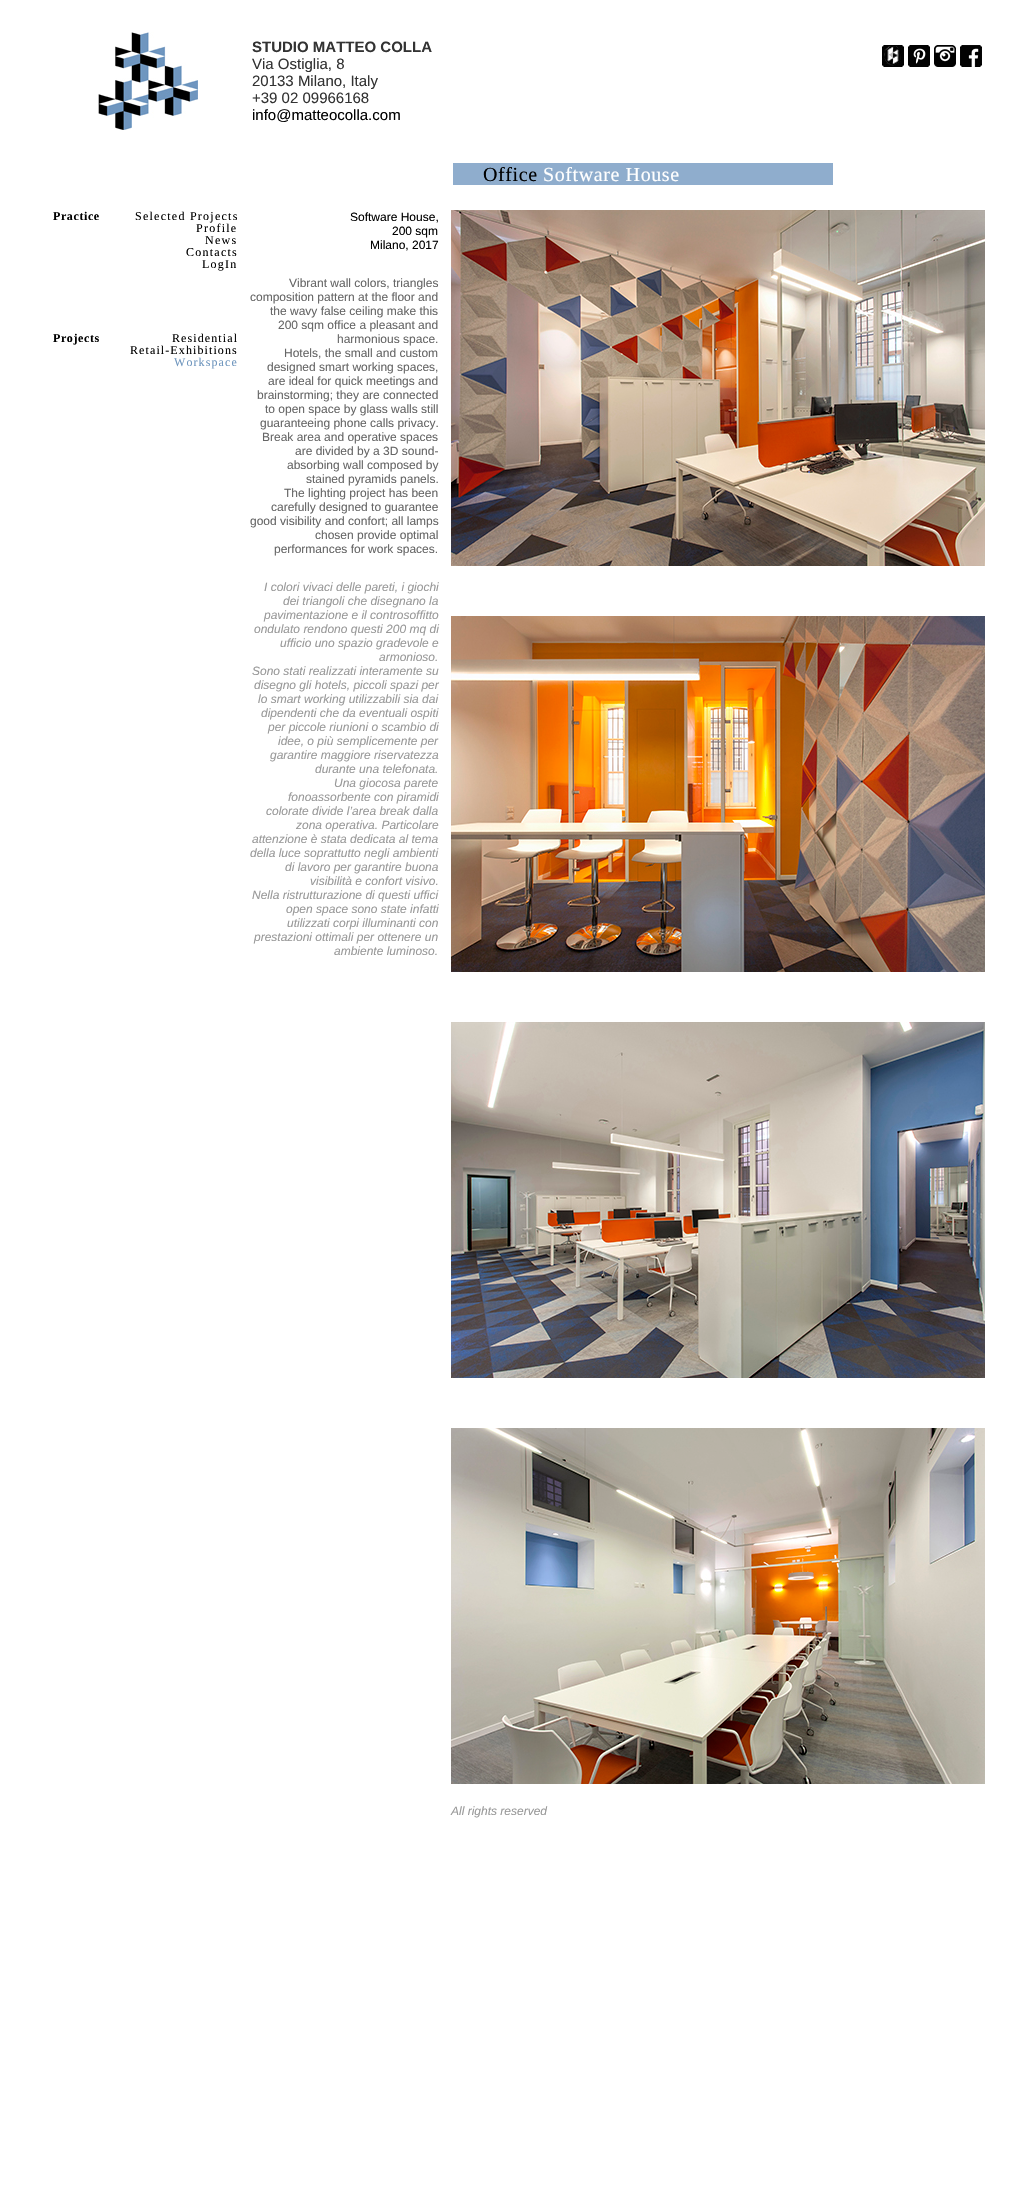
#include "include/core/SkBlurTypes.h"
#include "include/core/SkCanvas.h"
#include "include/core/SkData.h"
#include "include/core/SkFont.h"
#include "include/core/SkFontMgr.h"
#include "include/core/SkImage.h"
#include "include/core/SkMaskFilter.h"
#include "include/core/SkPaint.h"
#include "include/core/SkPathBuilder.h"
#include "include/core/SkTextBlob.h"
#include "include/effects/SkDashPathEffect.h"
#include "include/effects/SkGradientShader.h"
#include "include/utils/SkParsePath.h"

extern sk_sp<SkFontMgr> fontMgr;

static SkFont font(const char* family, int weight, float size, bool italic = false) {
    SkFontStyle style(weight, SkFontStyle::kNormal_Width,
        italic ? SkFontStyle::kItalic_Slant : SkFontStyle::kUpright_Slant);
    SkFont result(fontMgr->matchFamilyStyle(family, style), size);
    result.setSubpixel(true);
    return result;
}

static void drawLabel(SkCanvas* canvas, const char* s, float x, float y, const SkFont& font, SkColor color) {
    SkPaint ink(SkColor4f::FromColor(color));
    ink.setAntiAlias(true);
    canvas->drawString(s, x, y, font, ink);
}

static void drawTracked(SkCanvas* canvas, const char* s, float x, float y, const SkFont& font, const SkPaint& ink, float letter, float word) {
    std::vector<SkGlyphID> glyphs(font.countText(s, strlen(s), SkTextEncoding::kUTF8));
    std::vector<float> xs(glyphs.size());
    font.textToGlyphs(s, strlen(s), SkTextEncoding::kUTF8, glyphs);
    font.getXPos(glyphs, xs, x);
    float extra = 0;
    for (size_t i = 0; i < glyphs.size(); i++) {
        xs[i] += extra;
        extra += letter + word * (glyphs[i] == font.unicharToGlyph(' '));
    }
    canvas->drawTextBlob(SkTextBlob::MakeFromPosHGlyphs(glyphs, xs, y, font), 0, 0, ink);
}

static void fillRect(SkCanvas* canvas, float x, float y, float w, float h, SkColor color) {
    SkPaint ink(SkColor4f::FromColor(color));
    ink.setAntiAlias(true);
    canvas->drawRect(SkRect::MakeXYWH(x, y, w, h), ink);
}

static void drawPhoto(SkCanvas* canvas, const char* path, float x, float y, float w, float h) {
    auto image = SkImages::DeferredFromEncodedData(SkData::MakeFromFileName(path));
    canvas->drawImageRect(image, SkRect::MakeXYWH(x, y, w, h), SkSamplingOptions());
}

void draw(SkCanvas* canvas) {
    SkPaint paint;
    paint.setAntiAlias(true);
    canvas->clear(0xFFFFFFFF);
    drawPhoto(canvas, "assets/img1.png", 98, 32, 100, 98);
    SkFont font1 = font("Liberation Sans", 700, 15);
    drawLabel(canvas, "STUDIO MATTEO COLLA", 252, 52, font1, 0xFF333333);
    SkFont font2 = font("Liberation Sans", 400, 15);
    drawLabel(canvas, "Via Ostiglia, 8", 252, 69, font2, 0xFF333333);
    drawLabel(canvas, "20133 Milano, Italy", 252, 86, font2, 0xFF333333);
    drawLabel(canvas, "+39 02 09966168", 252, 103, font2, 0xFF333333);
    drawLabel(canvas, "info@matteocolla.com", 252, 120, font2, 0xFF000000);
    drawPhoto(canvas, "assets/img2.png", 882, 45, 22, 22);
    drawPhoto(canvas, "assets/img3.png", 908, 45, 22, 22);
    drawPhoto(canvas, "assets/img4.png", 934, 45, 22, 22);
    drawPhoto(canvas, "assets/img5.png", 960, 45, 22, 22);
    fillRect(canvas, 453, 163, 380, 22, 0xFF8FADCD);
    SkFont font3 = font("Liberation Serif", 400, 20);
    paint.setColor(0xFF000000);
    drawTracked(canvas, "Office", 483, 181, font3, paint, 0.6f, 0);
    paint.setColor(0xFFFFFFFF);
    drawTracked(canvas, "Software House", 543, 181, font3, paint, 0.6f, 0);
    SkFont font4 = font("Liberation Serif", 700, 12);
    paint.setColor(0xFF000000);
    drawTracked(canvas, "Practice", 53, 220, font4, paint, 0.6f, 0);
    SkFont font5 = font("Liberation Serif", 400, 12);
    drawTracked(canvas, "Selected Projects", 135, 220, font5, paint, 1.25f, 0);
    drawTracked(canvas, "Profile", 196, 232, font5, paint, 1.25f, 0);
    drawTracked(canvas, "News", 205, 244, font5, paint, 1.25f, 0);
    drawTracked(canvas, "Contacts", 186, 256, font5, paint, 1.25f, 0);
    drawTracked(canvas, "LogIn", 202, 268, font5, paint, 1.25f, 0);
    drawTracked(canvas, "Projects", 53, 342, font4, paint, 0.6f, 0);
    drawTracked(canvas, "Residential", 172, 342, font5, paint, 1.1f, 0);
    drawTracked(canvas, "Retail-Exhibitions", 130, 354, font5, paint, 1.1f, 0);
    paint.setColor(0xFF6F96BE);
    drawTracked(canvas, "Workspace", 174, 366, font5, paint, 1.1f, 0);
    SkFont font6 = font("Liberation Sans", 400, 12);
    drawLabel(canvas, "Software House,", 350, 221, font6, 0xFF000000);
    drawLabel(canvas, "200 sqm", 392, 235, font6, 0xFF000000);
    drawLabel(canvas, "Milano, 2017", 370, 249, font6, 0xFF000000);
    drawLabel(canvas, "Vibrant wall colors, triangles", 289, 287, font6, 0xFF666666);
    drawLabel(canvas, "composition pattern at the floor and", 250, 301, font6, 0xFF666666);
    drawLabel(canvas, "the wavy false ceiling make this", 270, 315, font6, 0xFF666666);
    drawLabel(canvas, "200 sqm office a pleasant and", 278, 329, font6, 0xFF666666);
    drawLabel(canvas, "harmonious space.", 337, 343, font6, 0xFF666666);
    drawLabel(canvas, "Hotels, the small and custom", 284, 357, font6, 0xFF666666);
    drawLabel(canvas, "designed smart working spaces,", 267, 371, font6, 0xFF666666);
    drawLabel(canvas, "are ideal for quick meetings and", 268, 385, font6, 0xFF666666);
    drawLabel(canvas, "brainstorming; they are connected", 257, 399, font6, 0xFF666666);
    drawLabel(canvas, "to open space by glass walls still", 265, 413, font6, 0xFF666666);
    drawLabel(canvas, "guaranteeing phone calls privacy.", 260, 427, font6, 0xFF666666);
    drawLabel(canvas, "Break area and operative spaces", 262, 441, font6, 0xFF666666);
    drawLabel(canvas, "are divided by a 3D sound-", 295, 455, font6, 0xFF666666);
    drawLabel(canvas, "absorbing wall composed by", 287, 469, font6, 0xFF666666);
    drawLabel(canvas, "stained pyramids panels.", 306, 483, font6, 0xFF666666);
    drawLabel(canvas, "The lighting project has been", 284, 497, font6, 0xFF666666);
    drawLabel(canvas, "carefully designed to guarantee", 271, 511, font6, 0xFF666666);
    drawLabel(canvas, "good visibility and confort; all lamps", 250, 525, font6, 0xFF666666);
    drawLabel(canvas, "chosen provide optimal", 315, 539, font6, 0xFF666666);
    drawLabel(canvas, "performances for work spaces.", 274, 553, font6, 0xFF666666);
    SkFont font7 = font("Liberation Sans", 400, 12, true);
    drawLabel(canvas, "I colori vivaci delle pareti, i giochi", 264, 591, font7, 0xFF999999);
    drawLabel(canvas, "dei triangoli che disegnano la", 283, 605, font7, 0xFF999999);
    drawLabel(canvas, "pavimentazione e il controsoffitto", 264, 619, font7, 0xFF999999);
    drawLabel(canvas, "ondulato rendono questi 200 mq di", 254, 633, font7, 0xFF999999);
    drawLabel(canvas, "ufficio uno spazio gradevole e", 280, 647, font7, 0xFF999999);
    drawLabel(canvas, "armonioso.", 379, 661, font7, 0xFF999999);
    drawLabel(canvas, "Sono stati realizzati interamente su", 252, 675, font7, 0xFF999999);
    drawLabel(canvas, "disegno gli hotels, piccoli spazi per", 254, 689, font7, 0xFF999999);
    drawLabel(canvas, "lo smart working utilizzabili sia dai", 258, 703, font7, 0xFF999999);
    drawLabel(canvas, "dipendenti che da eventuali ospiti", 261, 717, font7, 0xFF999999);
    drawLabel(canvas, "per piccole riunioni o scambio di", 268, 731, font7, 0xFF999999);
    drawLabel(canvas, "idee, o più semplicemente per", 278, 745, font7, 0xFF999999);
    drawLabel(canvas, "garantire maggiore riservatezza", 270, 759, font7, 0xFF999999);
    drawLabel(canvas, "durante una telefonata.", 315, 773, font7, 0xFF999999);
    drawLabel(canvas, "Una giocosa parete", 334, 787, font7, 0xFF999999);
    drawLabel(canvas, "fonoassorbente con piramidi", 288, 801, font7, 0xFF999999);
    drawLabel(canvas, "colorate divide l’area break dalla", 266, 815, font7, 0xFF999999);
    drawLabel(canvas, "zona operativa. Particolare", 296, 829, font7, 0xFF999999);
    drawLabel(canvas, "attenzione è stata dedicata al tema", 252, 843, font7, 0xFF999999);
    drawLabel(canvas, "della luce soprattutto negli ambienti", 250, 857, font7, 0xFF999999);
    drawLabel(canvas, "di lavoro per garantire buona", 285, 871, font7, 0xFF999999);
    drawLabel(canvas, "visibilità e confort visivo.", 310, 885, font7, 0xFF999999);
    drawLabel(canvas, "Nella ristrutturazione di questi uffici", 252, 899, font7, 0xFF999999);
    drawLabel(canvas, "open space sono state infatti", 286, 913, font7, 0xFF999999);
    drawLabel(canvas, "utilizzati corpi illuminanti con", 287, 927, font7, 0xFF999999);
    drawLabel(canvas, "prestazioni ottimali per ottenere un", 254, 941, font7, 0xFF999999);
    drawLabel(canvas, "ambiente luminoso.", 334, 955, font7, 0xFF999999);
    drawPhoto(canvas, "assets/img6.png", 451, 210, 534, 356);
    drawPhoto(canvas, "assets/img7.png", 451, 616, 534, 356);
    drawPhoto(canvas, "assets/img8.png", 451, 1022, 534, 356);
    drawPhoto(canvas, "assets/img9.png", 451, 1428, 534, 356);
    drawLabel(canvas, "All rights reserved", 451, 1815, font7, 0xFF999999);
}
